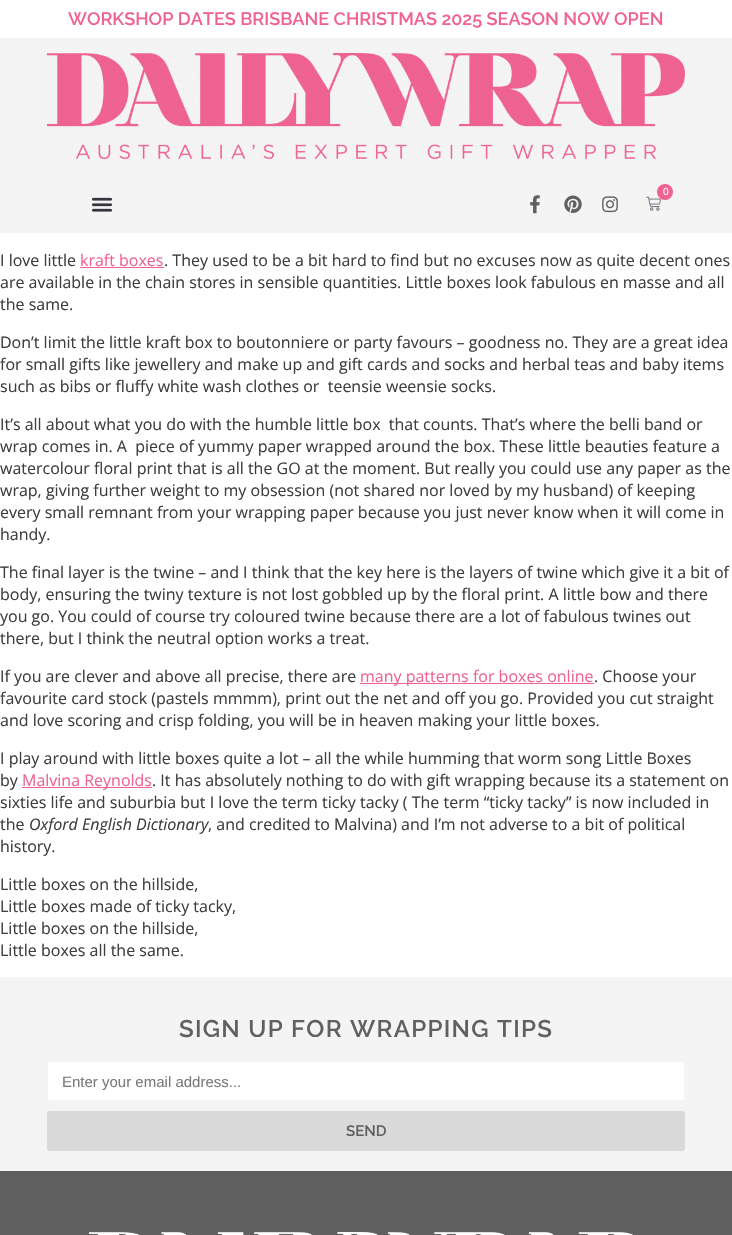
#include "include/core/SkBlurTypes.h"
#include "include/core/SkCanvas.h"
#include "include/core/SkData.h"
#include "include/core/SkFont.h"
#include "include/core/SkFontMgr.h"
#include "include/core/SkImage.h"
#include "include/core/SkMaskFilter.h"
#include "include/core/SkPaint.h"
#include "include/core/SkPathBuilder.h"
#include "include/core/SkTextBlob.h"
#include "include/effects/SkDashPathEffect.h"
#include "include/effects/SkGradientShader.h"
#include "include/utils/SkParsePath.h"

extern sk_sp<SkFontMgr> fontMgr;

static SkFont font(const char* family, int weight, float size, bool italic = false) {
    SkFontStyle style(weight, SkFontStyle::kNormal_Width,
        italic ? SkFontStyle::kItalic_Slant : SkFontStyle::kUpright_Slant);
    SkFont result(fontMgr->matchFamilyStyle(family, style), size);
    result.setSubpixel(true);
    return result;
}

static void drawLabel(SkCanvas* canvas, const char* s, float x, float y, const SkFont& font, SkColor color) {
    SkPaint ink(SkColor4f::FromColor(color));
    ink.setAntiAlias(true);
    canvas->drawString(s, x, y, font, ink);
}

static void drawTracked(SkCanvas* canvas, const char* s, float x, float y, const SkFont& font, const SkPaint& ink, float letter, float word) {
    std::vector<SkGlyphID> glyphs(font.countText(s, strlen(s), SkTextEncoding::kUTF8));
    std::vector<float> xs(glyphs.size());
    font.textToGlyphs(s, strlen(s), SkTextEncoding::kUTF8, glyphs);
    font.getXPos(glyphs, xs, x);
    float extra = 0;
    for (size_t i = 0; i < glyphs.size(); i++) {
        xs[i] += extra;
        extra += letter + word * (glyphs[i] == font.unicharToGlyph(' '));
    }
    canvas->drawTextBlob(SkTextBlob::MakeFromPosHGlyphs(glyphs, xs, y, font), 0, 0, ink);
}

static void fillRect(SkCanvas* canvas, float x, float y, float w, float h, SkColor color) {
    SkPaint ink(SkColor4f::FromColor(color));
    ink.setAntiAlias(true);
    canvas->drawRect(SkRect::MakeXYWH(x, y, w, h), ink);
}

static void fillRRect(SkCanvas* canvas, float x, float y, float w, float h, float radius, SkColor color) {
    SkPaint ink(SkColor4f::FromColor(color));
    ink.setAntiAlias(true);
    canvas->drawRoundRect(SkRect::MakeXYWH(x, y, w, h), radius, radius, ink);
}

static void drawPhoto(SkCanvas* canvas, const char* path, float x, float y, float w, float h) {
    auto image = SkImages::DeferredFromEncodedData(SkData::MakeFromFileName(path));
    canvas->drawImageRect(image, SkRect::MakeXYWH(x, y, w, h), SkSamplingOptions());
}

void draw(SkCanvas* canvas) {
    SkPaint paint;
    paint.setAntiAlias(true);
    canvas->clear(0xFFFFFFFF);
    SkFont font1 = font("Raleway", 600, 18);
    drawLabel(canvas, "WORKSHOP DATES BRISBANE CHRISTMAS 2025 SEASON NOW OPEN", 68, 25, font1, 0xFFEF6392);
    fillRect(canvas, 0, 38, 732, 195, 0xFFF4F4F4);
    drawPhoto(canvas, "assets/img1.png", 47, 53, 638, 106);
    drawPhoto(canvas, "assets/img2.png", 646, 196, 15, 15);
    paint.setColor(0xFFEF6392);
    canvas->drawCircle(665, 192, 8, paint);
    SkFont font2 = font("Open Sans", 400, 10);
    drawLabel(canvas, "0", 663, 195, font2, 0xFFFFFFFF);
    drawPhoto(canvas, "assets/img3.png", 530, 195, 10, 19);
    drawPhoto(canvas, "assets/img4.png", 564, 195, 18, 18);
    drawPhoto(canvas, "assets/img5.png", 602, 196, 16, 17);
    drawPhoto(canvas, "assets/img6.png", 91, 197, 22, 15);
    SkFont font3 = font("Open Sans", 400, 16);
    drawLabel(canvas, "I love little", 0, 266, font3, 0xFF3E3E3E);
    drawLabel(canvas, "kraft boxes", 80, 266, font3, 0xFFEF6392);
    fillRect(canvas, 80, 267, 84, 1, 0xFFEF6392);
    drawLabel(canvas, ". They used to be a bit hard to find but no excuses now as quite decent ones", 164, 266, font3, 0xFF3E3E3E);
    drawLabel(canvas, "are available in the chain stores in sensible quantities. Little boxes look fabulous en masse and all", 0, 288, font3, 0xFF3E3E3E);
    drawLabel(canvas, "the same.", 0, 310, font3, 0xFF3E3E3E);
    drawLabel(canvas, "Don’t limit the little kraft box to boutonniere or party favours – goodness no. They are a great idea", 0, 348, font3, 0xFF3E3E3E);
    drawLabel(canvas, "for small gifts like jewellery and make up and gift cards and socks and herbal teas and baby items", 0, 370, font3, 0xFF3E3E3E);
    drawLabel(canvas, "such as bibs or fluffy white wash clothes or  teensie weensie socks.", 0, 392, font3, 0xFF3E3E3E);
    drawLabel(canvas, "It’s all about what you do with the humble little box  that counts. That’s where the belli band or", 0, 430, font3, 0xFF3E3E3E);
    drawLabel(canvas, "wrap comes in. A  piece of yummy paper wrapped around the box. These little beauties feature a", 0, 452, font3, 0xFF3E3E3E);
    drawLabel(canvas, "watercolour floral print that is all the GO at the moment. But really you could use any paper as the", 0, 474, font3, 0xFF3E3E3E);
    drawLabel(canvas, "wrap, giving further weight to my obsession (not shared nor loved by my husband) of keeping", 0, 496, font3, 0xFF3E3E3E);
    drawLabel(canvas, "every small remnant from your wrapping paper because you just never know when it will come in", 0, 518, font3, 0xFF3E3E3E);
    drawLabel(canvas, "handy.", 0, 540, font3, 0xFF3E3E3E);
    drawLabel(canvas, "The final layer is the twine – and I think that the key here is the layers of twine which give it a bit of", 0, 578, font3, 0xFF3E3E3E);
    drawLabel(canvas, "body, ensuring the twiny texture is not lost gobbled up by the floral print. A little bow and there", 0, 600, font3, 0xFF3E3E3E);
    drawLabel(canvas, "you go. You could of course try coloured twine because there are a lot of fabulous twines out", 0, 622, font3, 0xFF3E3E3E);
    drawLabel(canvas, "there, but I think the neutral option works a treat.", 0, 644, font3, 0xFF3E3E3E);
    drawLabel(canvas, "If you are clever and above all precise, there are", 0, 682, font3, 0xFF3E3E3E);
    fillRect(canvas, 360, 683, 234, 1, 0xFFEF6392);
    drawLabel(canvas, "many patterns for boxes online", 360, 682, font3, 0xFFEF6392);
    drawLabel(canvas, ". Choose your", 594, 682, font3, 0xFF3E3E3E);
    drawLabel(canvas, "favourite card stock (pastels mmmm), print out the net and off you go. Provided you cut straight", 0, 704, font3, 0xFF3E3E3E);
    drawLabel(canvas, "and love scoring and crisp folding, you will be in heaven making your little boxes.", 0, 726, font3, 0xFF3E3E3E);
    drawLabel(canvas, "I play around with little boxes quite a lot – all the while humming that worm song Little Boxes", 0, 764, font3, 0xFF3E3E3E);
    drawLabel(canvas, "by", 0, 786, font3, 0xFF3E3E3E);
    fillRect(canvas, 22, 787, 130, 1, 0xFFEF6392);
    drawLabel(canvas, "Malvina Reynolds", 22, 786, font3, 0xFFEF6392);
    drawLabel(canvas, ". It has absolutely nothing to do with gift wrapping because its a statement on", 152, 786, font3, 0xFF3E3E3E);
    drawLabel(canvas, "sixties life and suburbia but I love the term ticky tacky ( The term “ticky tacky” is now included in", 0, 808, font3, 0xFF3E3E3E);
    drawLabel(canvas, "the", 0, 830, font3, 0xFF3E3E3E);
    SkFont font4 = font("Open Sans", 400, 16, true);
    drawLabel(canvas, "Oxford English Dictionary", 29, 830, font4, 0xFF3E3E3E);
    drawLabel(canvas, ", and credited to Malvina) and I’m not adverse to a bit of political", 208, 830, font3, 0xFF3E3E3E);
    drawLabel(canvas, "history.", 0, 852, font3, 0xFF3E3E3E);
    drawLabel(canvas, "Little boxes on the hillside,", 0, 890, font3, 0xFF3E3E3E);
    drawLabel(canvas, "Little boxes made of ticky tacky,", 0, 912, font3, 0xFF3E3E3E);
    drawLabel(canvas, "Little boxes on the hillside,", 0, 934, font3, 0xFF3E3E3E);
    drawLabel(canvas, "Little boxes all the same.", 0, 956, font3, 0xFF3E3E3E);
    fillRect(canvas, 0, 977, 732, 194, 0xFFF4F4F4);
    SkFont font5 = font("Raleway", 600, 24);
    paint.setColor(0xFF606060);
    drawTracked(canvas, "SIGN UP FOR WRAPPING TIPS", 179, 1037, font5, paint, 1.3f, 0);
    paint.setColor(0xFFFFFFFF);
    canvas->drawRoundRect(SkRect::MakeXYWH(47.5f, 1061.5f, 637, 39), 2.5f, 2.5f, paint);
    paint.setStroke(true);
    paint.setStrokeWidth(1);
    paint.setColor(0xFFF4F4F4);
    canvas->drawRoundRect(SkRect::MakeXYWH(47.5f, 1061.5f, 637, 39), 2.5f, 2.5f, paint);
    SkFont font6 = font("Liberation Sans", 400, 15);
    drawLabel(canvas, "Enter your email address...", 62, 1087, font6, 0xFF797A7C);
    fillRRect(canvas, 47, 1111, 638, 40, 3, 0xFFDADADA);
    SkFont font7 = font("Raleway", 600, 15);
    drawLabel(canvas, "SEND", 346, 1136, font7, 0xFF606060);
    fillRect(canvas, 0, 1171, 732, 64, 0xFF606060);
    drawPhoto(canvas, "assets/img7.png", 89, 1232, 544, 3);
}
